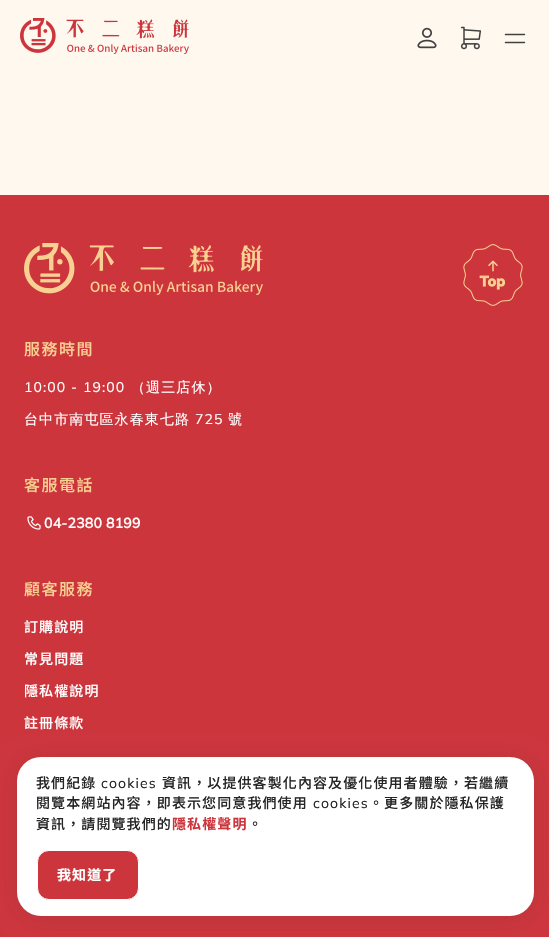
#include "include/core/SkBlurTypes.h"
#include "include/core/SkCanvas.h"
#include "include/core/SkData.h"
#include "include/core/SkFont.h"
#include "include/core/SkFontMgr.h"
#include "include/core/SkImage.h"
#include "include/core/SkMaskFilter.h"
#include "include/core/SkPaint.h"
#include "include/core/SkPathBuilder.h"
#include "include/core/SkTextBlob.h"
#include "include/effects/SkDashPathEffect.h"
#include "include/effects/SkGradientShader.h"
#include "include/utils/SkParsePath.h"

extern sk_sp<SkFontMgr> fontMgr;

static SkFont font(const char* family, int weight, float size, bool italic = false) {
    SkFontStyle style(weight, SkFontStyle::kNormal_Width,
        italic ? SkFontStyle::kItalic_Slant : SkFontStyle::kUpright_Slant);
    SkFont result(fontMgr->matchFamilyStyle(family, style), size);
    result.setSubpixel(true);
    return result;
}

static void drawTracked(SkCanvas* canvas, const char* s, float x, float y, const SkFont& font, const SkPaint& ink, float letter, float word) {
    std::vector<SkGlyphID> glyphs(font.countText(s, strlen(s), SkTextEncoding::kUTF8));
    std::vector<float> xs(glyphs.size());
    font.textToGlyphs(s, strlen(s), SkTextEncoding::kUTF8, glyphs);
    font.getXPos(glyphs, xs, x);
    float extra = 0;
    for (size_t i = 0; i < glyphs.size(); i++) {
        xs[i] += extra;
        extra += letter + word * (glyphs[i] == font.unicharToGlyph(' '));
    }
    canvas->drawTextBlob(SkTextBlob::MakeFromPosHGlyphs(glyphs, xs, y, font), 0, 0, ink);
}

static void fillRect(SkCanvas* canvas, float x, float y, float w, float h, SkColor color) {
    SkPaint ink(SkColor4f::FromColor(color));
    ink.setAntiAlias(true);
    canvas->drawRect(SkRect::MakeXYWH(x, y, w, h), ink);
}

static void fillRRect(SkCanvas* canvas, float x, float y, float w, float h, float radius, SkColor color) {
    SkPaint ink(SkColor4f::FromColor(color));
    ink.setAntiAlias(true);
    canvas->drawRoundRect(SkRect::MakeXYWH(x, y, w, h), radius, radius, ink);
}

static void drawPhoto(SkCanvas* canvas, const char* path, float x, float y, float w, float h) {
    auto image = SkImages::DeferredFromEncodedData(SkData::MakeFromFileName(path));
    canvas->drawImageRect(image, SkRect::MakeXYWH(x, y, w, h), SkSamplingOptions());
}

static SkPath parsePath(const char* data, bool evenOdd = false) {
    SkPath result = *SkParsePath::FromSVGString(data);
    if (evenOdd) result.setFillType(SkPathFillType::kEvenOdd);
    return result;
}

void draw(SkCanvas* canvas) {
    SkPaint paint;
    paint.setAntiAlias(true);
    canvas->clear(0xFFFEF8EF);
    drawPhoto(canvas, "assets/img1.png", 20, 18, 169, 36);
    drawPhoto(canvas, "assets/img2.png", 417, 27, 20, 22);
    drawPhoto(canvas, "assets/img3.png", 460, 26, 22, 24);
    paint.setStroke(true);
    paint.setStrokeWidth(1.5f);
    paint.setStrokeCap(SkPaint::kRound_Cap);
    paint.setStrokeJoin(SkPaint::kRound_Join);
    paint.setColor(0xFF424040);
    canvas->drawPath(parsePath("M505.5 34.5H524.5M505.5 42.5H524.5"), paint);
    fillRect(canvas, 0, 195, 549, 742, 0xFFCD353D);
    drawPhoto(canvas, "assets/img4.png", 463, 244, 60, 62);
    drawPhoto(canvas, "assets/img5.png", 24, 243, 239, 52);
    SkFont font1 = font("Noto Sans TC", 500, 16);
    paint.setStroke(false);
    paint.setColor(0xFFF8D192);
    drawTracked(canvas, "服務時間", 24, 355, font1, paint, 1.5f, 0);
    SkFont font2 = font("Mulish", 400, 14);
    paint.setColor(0xFFFFFFFF);
    drawTracked(canvas, "10:00 - 19:00", 24, 392, font2, paint, 1.1f, 0);
    SkFont font3 = font("WenQuanYi Zen Hei", 500, 14);
    drawTracked(canvas, "（週三店休）", 131, 392, font3, paint, 1.1f, 0);
    drawTracked(canvas, "台中市南屯區永春東七路", 24, 424, font3, paint, 1.1f, 0);
    drawTracked(canvas, "725", 195, 424, font2, paint, 1.1f, 0);
    drawTracked(canvas, "號", 228, 424, font3, paint, 1.1f, 0);
    paint.setColor(0xFFF8D192);
    drawTracked(canvas, "客服電話", 24, 491, font1, paint, 1.5f, 0);
    drawPhoto(canvas, "assets/img6.png", 27, 516, 14, 14);
    SkFont font4 = font("Mulish", 700, 14);
    paint.setColor(0xFFFFFFFF);
    drawTracked(canvas, "04-2380 8199", 44, 528, font4, paint, 0.25f, 0);
    paint.setColor(0xFFF8D192);
    drawTracked(canvas, "顧客服務", 24, 595, font1, paint, 1.5f, 0);
    SkFont font5 = font("Noto Sans TC", 500, 14);
    paint.setColor(0xFFFFFFFF);
    drawTracked(canvas, "訂購說明", 24, 632, font5, paint, 1.1f, 0);
    drawTracked(canvas, "常見問題", 24, 664, font5, paint, 1.1f, 0);
    drawTracked(canvas, "隱私權說明", 24, 696, font5, paint, 1.1f, 0);
    drawTracked(canvas, "註冊條款", 24, 728, font5, paint, 1.1f, 0);
    paint.setColor(0x292D2C2C);
    paint.setMaskFilter(SkMaskFilter::MakeBlur(kNormal_SkBlurStyle, 12));
    canvas->drawRoundRect(SkRect::MakeXYWH(19, 761, 513, 155), 22, 22, paint);
    paint.setMaskFilter(nullptr);
    fillRRect(canvas, 17, 757, 517, 159, 24, 0xFFFFFFFF);
    paint.setColor(0xFF242424);
    drawTracked(canvas, "我們紀錄", 36, 788, font5, paint, 1.1f, 0);
    drawTracked(canvas, "cookies", 101, 788, font2, paint, 1.1f, 0);
    drawTracked(canvas, "資訊，以提供客製化內容及優化使用者體驗，若繼續", 162, 788, font5, paint, 1.1f, 0);
    drawTracked(canvas, "閱覽本網站內容，即表示您同意我們使用", 36, 808, font5, paint, 1.1f, 0);
    drawTracked(canvas, "cookies", 313, 808, font2, paint, 1.1f, 0);
    drawTracked(canvas, "。更多關於隱私保護", 369, 808, font5, paint, 1.1f, 0);
    drawTracked(canvas, "資訊，請閱覽我們的", 36, 829, font5, paint, 1.1f, 0);
    SkFont font6 = font("Noto Sans TC", 700, 14);
    paint.setColor(0xFFCD353D);
    drawTracked(canvas, "隱私權聲明", 172, 829, font6, paint, 1.1f, 0);
    paint.setColor(0xFF242424);
    drawTracked(canvas, "。", 248, 829, font5, paint, 1.1f, 0);
    paint.setColor(0xFFCD353D);
    canvas->drawRoundRect(SkRect::MakeXYWH(37.5f, 850.5f, 101, 49), 11.5f, 11.5f, paint);
    paint.setStroke(true);
    paint.setStrokeWidth(1);
    paint.setStrokeCap(SkPaint::kButt_Cap);
    paint.setStrokeJoin(SkPaint::kMiter_Join);
    paint.setColor(0xFFFFFFFF);
    canvas->drawRoundRect(SkRect::MakeXYWH(37.5f, 850.5f, 101, 49), 11.5f, 11.5f, paint);
    paint.setStroke(false);
    drawTracked(canvas, "我知道了", 57, 880, font6, paint, 1.1f, 0);
}
